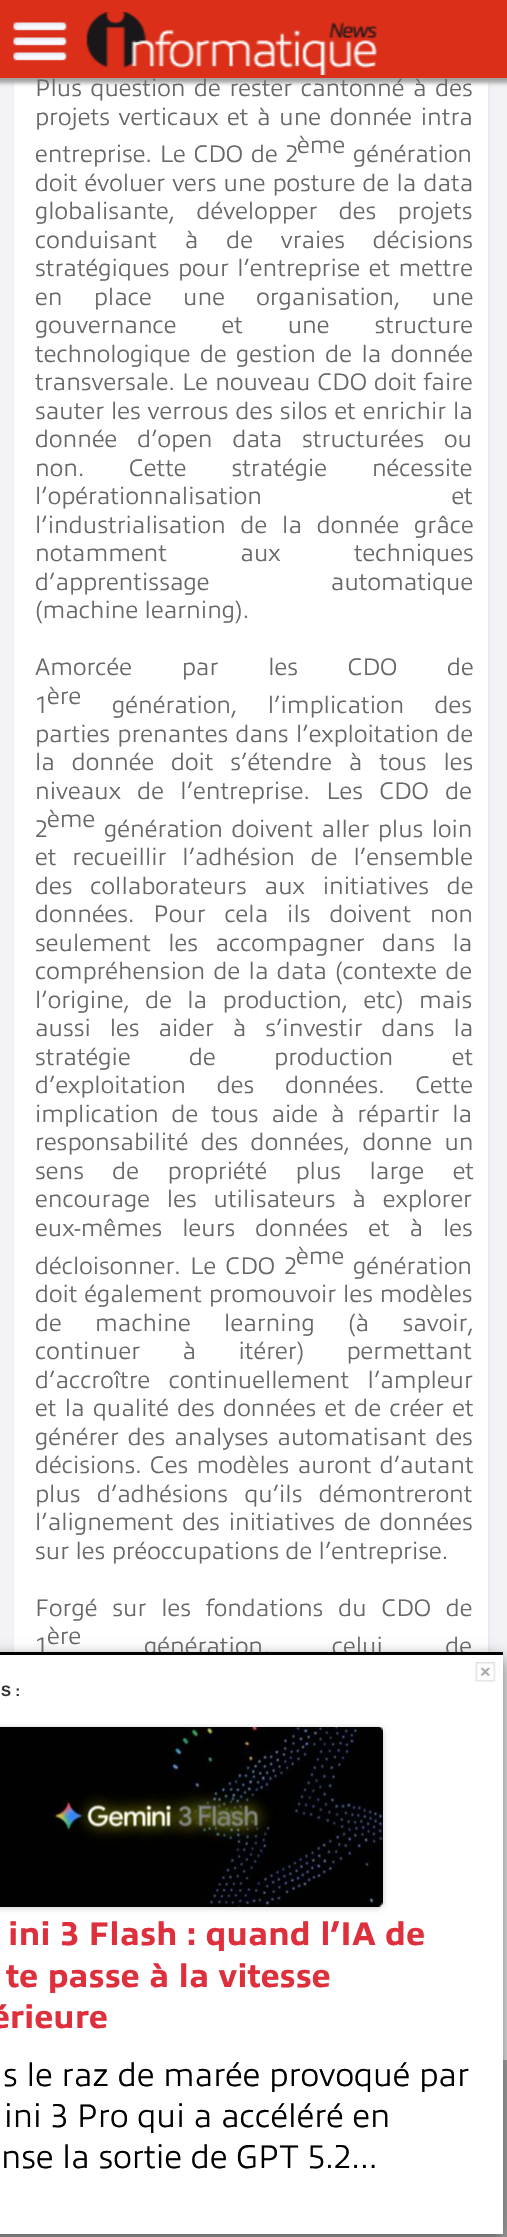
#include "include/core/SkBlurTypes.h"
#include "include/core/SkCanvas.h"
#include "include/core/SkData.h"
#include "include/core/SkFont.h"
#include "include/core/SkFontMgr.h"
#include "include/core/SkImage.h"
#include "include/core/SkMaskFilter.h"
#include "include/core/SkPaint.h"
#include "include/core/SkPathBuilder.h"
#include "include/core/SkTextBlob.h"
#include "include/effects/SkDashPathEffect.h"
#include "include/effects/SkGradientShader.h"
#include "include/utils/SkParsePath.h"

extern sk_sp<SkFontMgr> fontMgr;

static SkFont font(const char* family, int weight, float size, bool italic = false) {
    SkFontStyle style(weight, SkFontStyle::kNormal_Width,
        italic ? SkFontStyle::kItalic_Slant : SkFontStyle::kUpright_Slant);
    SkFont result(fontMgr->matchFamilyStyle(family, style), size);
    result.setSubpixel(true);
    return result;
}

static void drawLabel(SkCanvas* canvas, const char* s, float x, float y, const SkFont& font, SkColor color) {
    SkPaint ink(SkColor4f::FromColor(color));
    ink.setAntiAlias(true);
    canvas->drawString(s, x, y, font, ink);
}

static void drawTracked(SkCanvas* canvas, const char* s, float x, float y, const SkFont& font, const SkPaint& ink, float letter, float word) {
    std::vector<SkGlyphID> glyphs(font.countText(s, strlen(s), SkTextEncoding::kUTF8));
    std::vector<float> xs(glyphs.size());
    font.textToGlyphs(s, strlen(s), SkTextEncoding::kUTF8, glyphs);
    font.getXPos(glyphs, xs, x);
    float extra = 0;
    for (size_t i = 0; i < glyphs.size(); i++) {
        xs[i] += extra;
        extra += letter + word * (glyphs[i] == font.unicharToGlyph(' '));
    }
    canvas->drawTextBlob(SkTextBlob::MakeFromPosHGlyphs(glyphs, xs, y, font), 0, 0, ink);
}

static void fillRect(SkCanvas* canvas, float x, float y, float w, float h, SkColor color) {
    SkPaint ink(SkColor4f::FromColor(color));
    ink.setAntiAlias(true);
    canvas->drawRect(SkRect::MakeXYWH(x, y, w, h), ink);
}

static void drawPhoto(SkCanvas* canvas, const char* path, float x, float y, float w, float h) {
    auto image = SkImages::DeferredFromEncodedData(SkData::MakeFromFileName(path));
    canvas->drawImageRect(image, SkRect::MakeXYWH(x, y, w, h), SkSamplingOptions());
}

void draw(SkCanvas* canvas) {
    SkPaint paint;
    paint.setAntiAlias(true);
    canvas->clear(0xFFF3F2F6);
    paint.setColor(0x0F000000);
    paint.setMaskFilter(SkMaskFilter::MakeBlur(kNormal_SkBlurStyle, 1.5f));
    canvas->drawRect(SkRect::MakeXYWH(15, -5, 474, 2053), paint);
    paint.setMaskFilter(nullptr);
    fillRect(canvas, 14, 78, 474, 1574, 0xFFFFFFFF);
    paint.setColor(0xFFA3A3A4);
    paint.setMaskFilter(SkMaskFilter::MakeBlur(kNormal_SkBlurStyle, 2));
    canvas->drawRect(SkRect::MakeXYWH(-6, -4, 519, 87), paint);
    paint.setMaskFilter(nullptr);
    fillRect(canvas, 0, 0, 507, 78, 0xFFDB2F19);
    drawPhoto(canvas, "assets/img1.png", 13, 22, 54, 39);
    drawPhoto(canvas, "assets/img2.png", 86, 12, 291, 63);
    SkFont font1 = font("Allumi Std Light", 300, 24);
    paint.setColor(0xFF686868);
    drawTracked(canvas, "Plus question de rester cantonné à des", 35, 96, font1, paint, 0, 2.25f);
    drawTracked(canvas, "projets verticaux et à une donnée intra", 35, 125, font1, paint, 0, 2.25f);
    drawTracked(canvas, "entreprise. Le CDO de 2", 35, 162, font1, paint, 0, 1.5f);
    drawLabel(canvas, "ème", 297, 153, font1, 0xFF686868);
    drawLabel(canvas, "génération", 353, 162, font1, 0xFF686868);
    drawTracked(canvas, "doit évoluer vers une posture de la data", 35, 191, font1, paint, 0, 0.75f);
    drawTracked(canvas, "globalisante, développer des projets", 35, 219, font1, paint, 0, 15);
    drawTracked(canvas, "conduisant à de vraies décisions", 35, 248, font1, paint, 0, 21.5f);
    drawTracked(canvas, "stratégiques pour l’entreprise et mettre", 35, 276, font1, paint, 0, 2);
    drawTracked(canvas, "en place une organisation, une", 35, 305, font1, paint, 0, 25);
    drawTracked(canvas, "gouvernance et une structure", 35, 333, font1, paint, 0, 38.5f);
    drawTracked(canvas, "technologique de gestion de la donnée", 35, 362, font1, paint, 0, 3);
    drawTracked(canvas, "transversale. Le nouveau CDO doit faire", 35, 390, font1, paint, 0, 0.75f);
    drawTracked(canvas, "sauter les verrous des silos et enrichir la", 35, 419, font1, paint, 0, 0.5f);
    drawTracked(canvas, "donnée d’open data structurées ou", 35, 447, font1, paint, 0, 13.5f);
    drawTracked(canvas, "non. Cette stratégie nécessite", 35, 476, font1, paint, 0, 38.5f);
    drawTracked(canvas, "l’opérationnalisation et", 35, 504, font1, paint, 0, 183);
    drawTracked(canvas, "l’industrialisation de la donnée grâce", 35, 533, font1, paint, 0, 8.5f);
    drawTracked(canvas, "notamment aux techniques", 35, 561, font1, paint, 0, 67);
    drawTracked(canvas, "d’apprentissage automatique", 35, 590, font1, paint, 0, 115);
    drawLabel(canvas, "(machine learning).", 35, 618, font1, 0xFF686868);
    drawTracked(canvas, "Amorcée par les CDO de", 35, 675, font1, paint, 0, 43.5f);
    drawLabel(canvas, "1", 35, 713, font1, 0xFF686868);
    drawLabel(canvas, "ère", 47, 704, font1, 0xFF686868);
    drawTracked(canvas, "génération, l’implication des", 112, 713, font1, paint, 0, 24);
    drawTracked(canvas, "parties prenantes dans l’exploitation de", 35, 742, font1, paint, 0, 1);
    drawTracked(canvas, "la donnée doit s’étendre à tous les", 35, 770, font1, paint, 0, 10.5f);
    drawTracked(canvas, "niveaux de l’entreprise. Les CDO de", 35, 799, font1, paint, 0, 10);
    drawLabel(canvas, "2", 35, 837, font1, 0xFF686868);
    drawLabel(canvas, "ème", 47, 827, font1, 0xFF686868);
    drawTracked(canvas, "génération doivent aller plus loin", 104, 837, font1, paint, 0, 2);
    drawTracked(canvas, "et recueillir l’adhésion de l’ensemble", 35, 865, font1, paint, 0, 9.5f);
    drawTracked(canvas, "des collaborateurs aux initiatives de", 35, 894, font1, paint, 0, 11.5f);
    drawTracked(canvas, "données. Pour cela ils doivent non", 35, 922, font1, paint, 0, 12.5f);
    drawTracked(canvas, "seulement les accompagner dans la", 35, 951, font1, paint, 0, 11);
    drawTracked(canvas, "compréhension de la data (contexte de", 35, 979, font1, paint, 0, 2);
    drawTracked(canvas, "l’origine, de la production, etc) mais", 35, 1008, font1, paint, 0, 9);
    drawTracked(canvas, "aussi les aider à s’investir dans la", 35, 1036, font1, paint, 0, 12.5f);
    drawTracked(canvas, "stratégie de production et", 35, 1065, font1, paint, 0, 52);
    drawTracked(canvas, "d’exploitation des données. Cette", 35, 1093, font1, paint, 0, 24.5f);
    drawTracked(canvas, "implication de tous aide à répartir la", 35, 1122, font1, paint, 0, 6.5f);
    drawTracked(canvas, "responsabilité des données, donne un", 35, 1150, font1, paint, 0, 6);
    drawTracked(canvas, "sens de propriété plus large et", 35, 1179, font1, paint, 0, 22);
    drawTracked(canvas, "encourage les utilisateurs à explorer", 35, 1207, font1, paint, 0, 10.5f);
    drawTracked(canvas, "eux-mêmes leurs données et à les", 35, 1236, font1, paint, 0, 13.5f);
    drawTracked(canvas, "décloisonner. Le CDO 2", 35, 1274, font1, paint, 0, 3);
    drawLabel(canvas, "ème", 296, 1264, font1, 0xFF686868);
    drawLabel(canvas, "génération", 353, 1274, font1, 0xFF686868);
    drawTracked(canvas, "doit également promouvoir les modèles", 35, 1302, font1, paint, 0, 0.5f);
    drawTracked(canvas, "de machine learning (à savoir,", 35, 1331, font1, paint, 0, 27);
    drawTracked(canvas, "continuer à itérer) permettant", 35, 1359, font1, paint, 0, 36);
    drawTracked(canvas, "d’accroître continuellement l’ampleur", 35, 1388, font1, paint, 0, 12);
    drawTracked(canvas, "et la qualité des données et de créer et", 35, 1416, font1, paint, 0, 2);
    drawTracked(canvas, "générer des analyses automatisant des", 35, 1445, font1, paint, 0, 2.5f);
    drawTracked(canvas, "décisions. Ces modèles auront d’autant", 35, 1473, font1, paint, 0, 2);
    drawTracked(canvas, "plus d’adhésions qu’ils démontreront", 35, 1502, font1, paint, 0, 10);
    drawTracked(canvas, "l’alignement des initiatives de données", 35, 1530, font1, paint, 0, 2.5f);
    drawLabel(canvas, "sur les préoccupations de l’entreprise.", 35, 1559, font1, 0xFF686868);
    drawTracked(canvas, "Forgé sur les fondations du CDO de", 35, 1616, font1, paint, 0, 8.5f);
    drawLabel(canvas, "1", 35, 1654, font1, 0xFF686868);
    drawLabel(canvas, "ère", 47, 1644, font1, 0xFF686868);
    drawTracked(canvas, "génération, celui de", 144, 1654, font1, paint, 0, 56);
    fillRect(canvas, 0, 2060, 507, 177, 0xFF9C9C9C);
    paint.setColor(0xFF666666);
    paint.setMaskFilter(SkMaskFilter::MakeBlur(kNormal_SkBlurStyle, 7.5f));
    canvas->drawRect(SkRect::MakeXYWH(-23, 1658, 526, 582), paint);
    paint.setMaskFilter(nullptr);
    fillRect(canvas, 0, 1655, 503, 579, 0xFFFFFFFF);
    fillRect(canvas, 0, 1652, 503, 3, 0xFF000000);
    drawPhoto(canvas, "assets/img3.png", 475, 1662, 21, 20);
    SkFont font2 = font("Liberation Sans", 700, 15);
    drawLabel(canvas, "S :", 1, 1696, font2, 0xFF333333);
    paint.setColor(0x33000000);
    paint.setMaskFilter(SkMaskFilter::MakeBlur(kNormal_SkBlurStyle, 3));
    canvas->drawRoundRect(SkRect::MakeXYWH(-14, 1728, 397, 180), 5, 5, paint);
    paint.setMaskFilter(nullptr);
    drawPhoto(canvas, "assets/img4.png", 0, 1727, 383, 180);
    SkFont font3 = font("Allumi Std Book", 800, 33);
    drawLabel(canvas, "ini 3 Flash : quand l’IA de", 8, 1945, font3, 0xFFDE303C);
    drawLabel(canvas, "te passe à la vitesse", 6, 1987, font3, 0xFFDE303C);
    drawLabel(canvas, "érieure", -9, 2028, font3, 0xFFDE303C);
    SkFont font4 = font("Allumi Std Light", 300, 33);
    drawLabel(canvas, "s le raz de marée provoqué par", 3, 2086, font4, 0xFF000000);
    drawLabel(canvas, "ini 3 Pro qui a accéléré en", 4, 2127, font4, 0xFF000000);
    drawLabel(canvas, "nse la sortie de GPT 5.2...", 1, 2168, font4, 0xFF000000);
}
